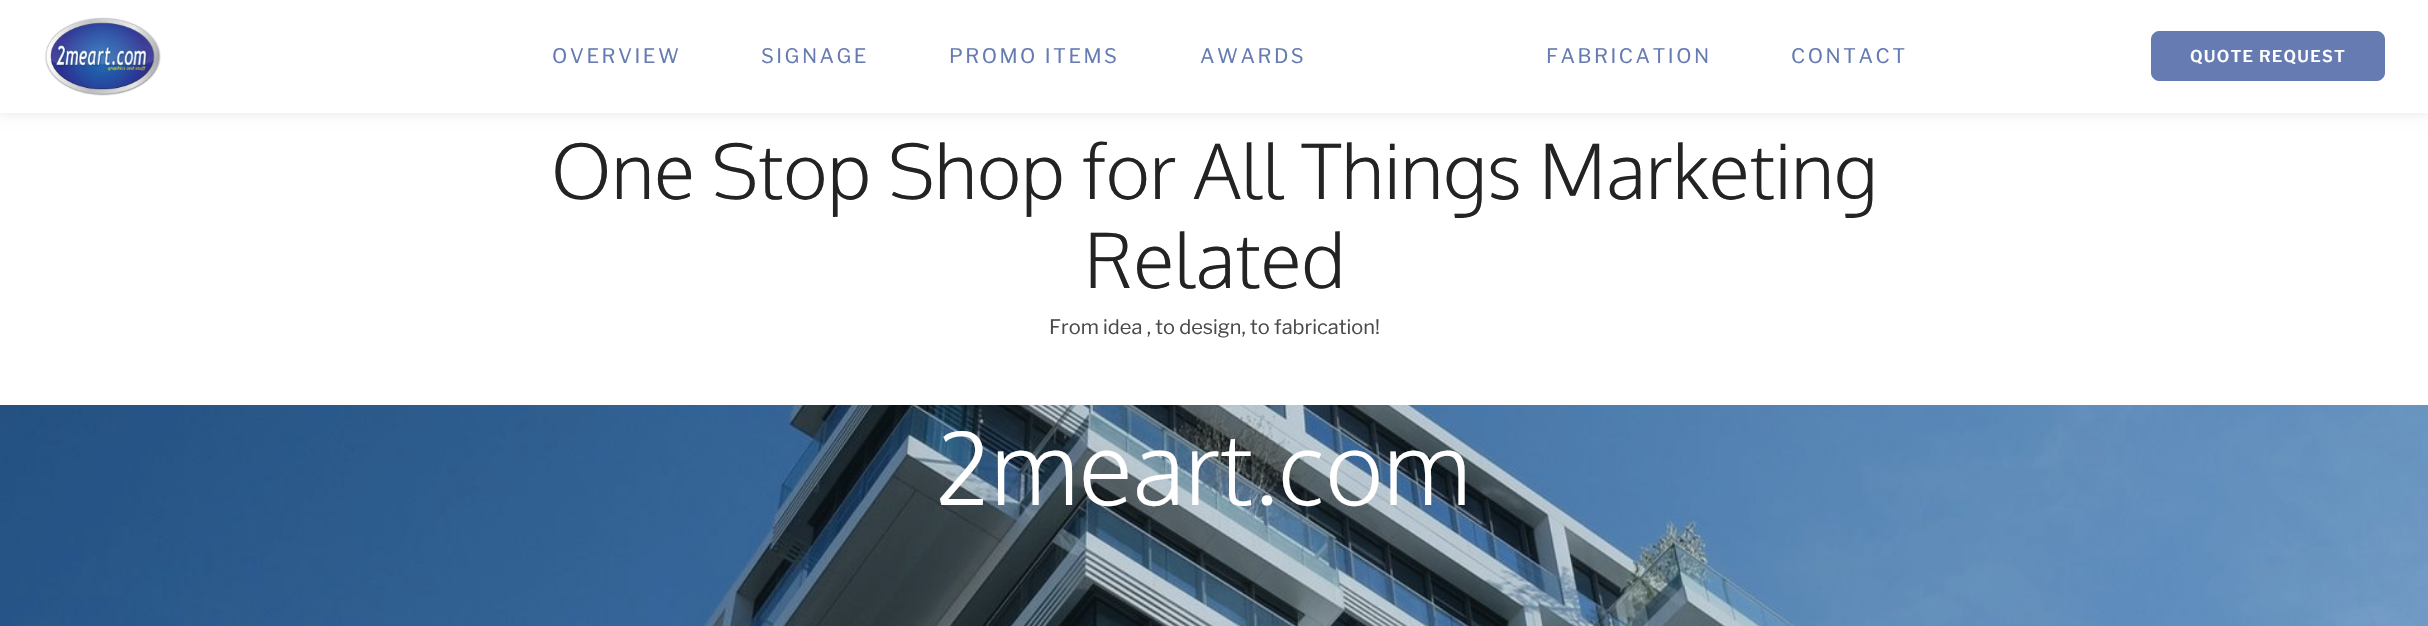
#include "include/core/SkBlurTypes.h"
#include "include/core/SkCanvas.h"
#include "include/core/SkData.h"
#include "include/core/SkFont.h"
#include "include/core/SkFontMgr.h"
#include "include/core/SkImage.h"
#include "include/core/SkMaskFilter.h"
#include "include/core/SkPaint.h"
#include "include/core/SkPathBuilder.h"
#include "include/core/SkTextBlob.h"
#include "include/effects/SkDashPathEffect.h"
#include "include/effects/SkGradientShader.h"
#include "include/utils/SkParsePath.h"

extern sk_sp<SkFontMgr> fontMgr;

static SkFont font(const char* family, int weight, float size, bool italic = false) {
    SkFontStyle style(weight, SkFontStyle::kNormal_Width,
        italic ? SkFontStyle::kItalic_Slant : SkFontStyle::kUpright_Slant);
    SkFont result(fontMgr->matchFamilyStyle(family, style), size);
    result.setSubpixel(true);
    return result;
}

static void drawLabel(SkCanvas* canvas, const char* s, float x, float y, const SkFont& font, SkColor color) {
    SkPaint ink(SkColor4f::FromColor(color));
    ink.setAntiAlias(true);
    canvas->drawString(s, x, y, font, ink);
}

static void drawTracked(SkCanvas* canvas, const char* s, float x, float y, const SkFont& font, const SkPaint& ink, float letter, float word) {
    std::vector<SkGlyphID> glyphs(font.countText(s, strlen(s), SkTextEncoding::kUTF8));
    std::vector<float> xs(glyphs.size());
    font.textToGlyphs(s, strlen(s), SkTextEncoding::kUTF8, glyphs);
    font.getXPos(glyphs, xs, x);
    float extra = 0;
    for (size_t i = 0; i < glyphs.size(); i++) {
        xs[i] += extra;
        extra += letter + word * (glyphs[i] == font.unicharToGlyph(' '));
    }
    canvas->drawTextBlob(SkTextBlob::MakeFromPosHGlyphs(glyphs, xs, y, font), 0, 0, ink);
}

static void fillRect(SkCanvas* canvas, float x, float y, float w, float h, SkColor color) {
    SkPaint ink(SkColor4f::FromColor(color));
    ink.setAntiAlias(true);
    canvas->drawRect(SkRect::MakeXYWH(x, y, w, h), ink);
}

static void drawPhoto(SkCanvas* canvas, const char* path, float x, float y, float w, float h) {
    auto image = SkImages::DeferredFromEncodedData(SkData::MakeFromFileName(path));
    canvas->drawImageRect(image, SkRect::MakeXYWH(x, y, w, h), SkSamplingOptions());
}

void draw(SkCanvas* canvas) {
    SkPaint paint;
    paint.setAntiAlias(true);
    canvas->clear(0xFFFFFFFF);
    paint.setColor(0x1A000000);
    paint.setMaskFilter(SkMaskFilter::MakeBlur(kNormal_SkBlurStyle, 6));
    canvas->drawRect(SkRect::MakeXYWH(0, 0, 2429, 113), paint);
    paint.setMaskFilter(nullptr);
    fillRect(canvas, 0, 0, 2428, 113, 0xFFFFFFFF);
    drawPhoto(canvas, "assets/img1.png", 45, 17, 116, 79);
    SkFont font1 = font("Libre Franklin", 400, 20);
    paint.setColor(0xFF667BB1);
    drawTracked(canvas, "OVERVIEW", 552, 63, font1, paint, 2.5f, 0);
    drawTracked(canvas, "SIGNAGE", 761, 63, font1, paint, 2.5f, 0);
    drawTracked(canvas, "PROMO ITEMS", 949, 63, font1, paint, 2.5f, 0);
    drawTracked(canvas, "AWARDS", 1200, 63, font1, paint, 2.5f, 0);
    drawTracked(canvas, "FABRICATION", 1546, 63, font1, paint, 2.5f, 0);
    drawTracked(canvas, "CONTACT", 1791, 63, font1, paint, 2.5f, 0);
    canvas->drawRoundRect(SkRect::MakeXYWH(2151.5f, 31.5f, 233, 49), 7.5f, 7.5f, paint);
    paint.setStroke(true);
    paint.setStrokeWidth(1);
    canvas->drawRoundRect(SkRect::MakeXYWH(2151.5f, 31.5f, 233, 49), 7.5f, 7.5f, paint);
    SkFont font2 = font("Libre Franklin", 600, 16.25f);
    paint.setStroke(false);
    paint.setColor(0xFFFFFFFF);
    drawTracked(canvas, "QUOTE REQUEST", 2190, 62, font2, paint, 1.25f, 0);
    SkFont font3 = font("Oxygen", 300, 76);
    drawLabel(canvas, "One Stop Shop for All Things Marketing", 551, 199, font3, 0xFF232323);
    drawLabel(canvas, "Related", 1084, 288, font3, 0xFF232323);
    drawLabel(canvas, "From idea , to design, to fabrication!", 1049, 334, font1, 0xFF4A4A4A);
    drawPhoto(canvas, "assets/img2.png", 0, 405, 2428, 221);
    SkFont font4 = font("Oxygen", 300, 100);
    drawLabel(canvas, "2meart.com", 935, 505, font4, 0xFFFFFFFF);
}
